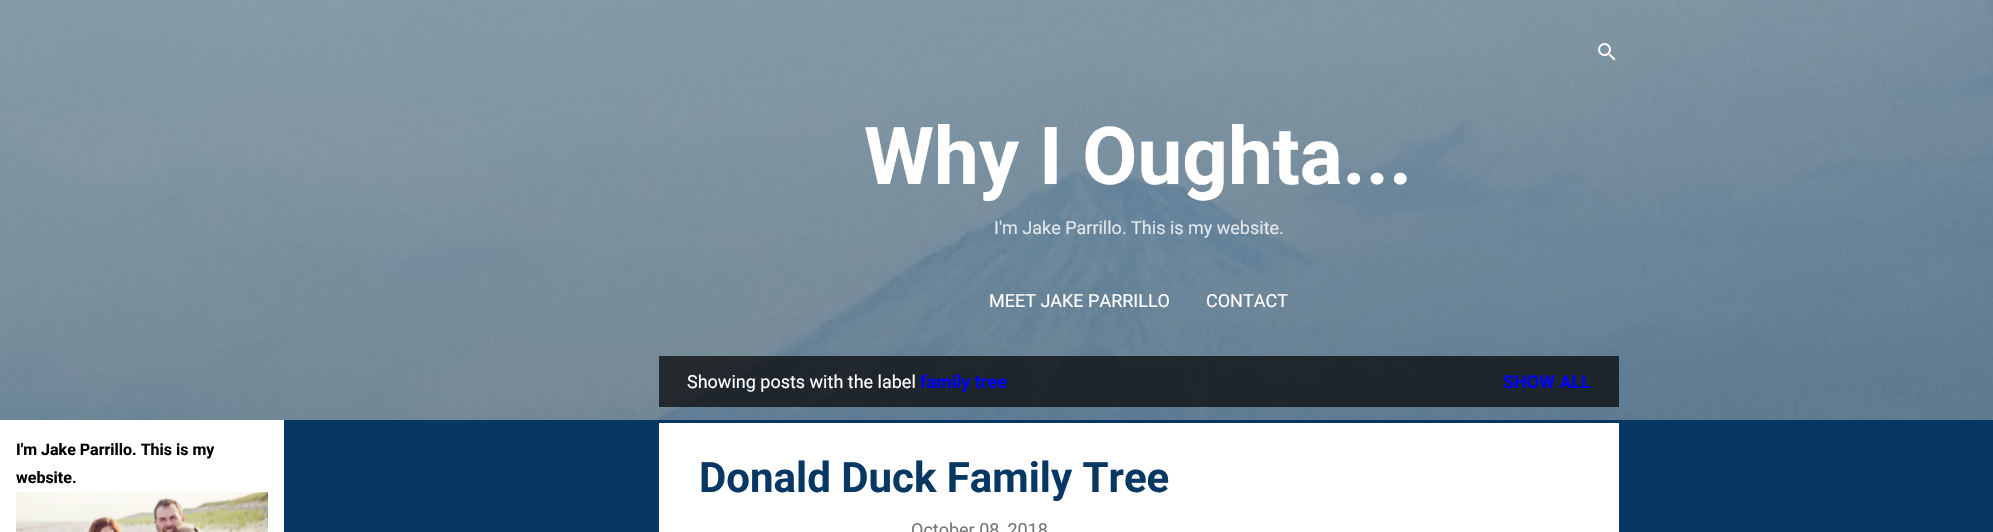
#include "include/core/SkBlurTypes.h"
#include "include/core/SkCanvas.h"
#include "include/core/SkData.h"
#include "include/core/SkFont.h"
#include "include/core/SkFontMgr.h"
#include "include/core/SkImage.h"
#include "include/core/SkMaskFilter.h"
#include "include/core/SkPaint.h"
#include "include/core/SkPathBuilder.h"
#include "include/core/SkTextBlob.h"
#include "include/effects/SkDashPathEffect.h"
#include "include/effects/SkGradientShader.h"
#include "include/utils/SkParsePath.h"

extern sk_sp<SkFontMgr> fontMgr;

static SkFont font(const char* family, int weight, float size, bool italic = false) {
    SkFontStyle style(weight, SkFontStyle::kNormal_Width,
        italic ? SkFontStyle::kItalic_Slant : SkFontStyle::kUpright_Slant);
    SkFont result(fontMgr->matchFamilyStyle(family, style), size);
    result.setSubpixel(true);
    return result;
}

static void drawLabel(SkCanvas* canvas, const char* s, float x, float y, const SkFont& font, SkColor color) {
    SkPaint ink(SkColor4f::FromColor(color));
    ink.setAntiAlias(true);
    canvas->drawString(s, x, y, font, ink);
}

static void fillRect(SkCanvas* canvas, float x, float y, float w, float h, SkColor color) {
    SkPaint ink(SkColor4f::FromColor(color));
    ink.setAntiAlias(true);
    canvas->drawRect(SkRect::MakeXYWH(x, y, w, h), ink);
}

static void drawPhoto(SkCanvas* canvas, const char* path, float x, float y, float w, float h) {
    auto image = SkImages::DeferredFromEncodedData(SkData::MakeFromFileName(path));
    canvas->drawImageRect(image, SkRect::MakeXYWH(x, y, w, h), SkSamplingOptions());
}

void draw(SkCanvas* canvas) {
    SkPaint paint;
    paint.setAntiAlias(true);
    canvas->clear(0xFF073763);
    fillRect(canvas, 0, 420, 284, 112, 0xFFFFFFFF);
    SkFont font1 = font("Roboto", 700, 16);
    drawLabel(canvas, "I'm Jake Parrillo. This is my", 16, 455, font1, 0xFF000000);
    drawLabel(canvas, "website.", 16, 483, font1, 0xFF000000);
    drawPhoto(canvas, "assets/img1.png", 16, 492, 252, 40);
    drawPhoto(canvas, "assets/img2.png", 0, 0, 1993, 420);
    drawPhoto(canvas, "assets/img3.png", 1598, 43, 18, 18);
    SkFont font2 = font("Roboto", 700, 80);
    drawLabel(canvas, "Why I Oughta...", 864, 184, font2, 0xFFFFFFFF);
    SkFont font3 = font("Roboto", 400, 18);
    drawLabel(canvas, "I'm Jake Parrillo. This is my website.", 994, 234, font3, 0xFFE1E7EB);
    drawLabel(canvas, "MEET JAKE PARRILLO", 989, 307, font3, 0xFFFFFFFF);
    drawLabel(canvas, "CONTACT", 1206, 307, font3, 0xFFFFFFFF);
    fillRect(canvas, 659, 356, 960, 51, 0xB3000000);
    drawLabel(canvas, "Showing posts with the label", 687, 388, font3, 0xFFFFFFFF);
    SkFont font4 = font("Roboto", 700, 18);
    drawLabel(canvas, "family tree", 920, 388, font4, 0xFF0000FF);
    drawLabel(canvas, "SHOW ALL", 1503, 388, font4, 0xFF0000FF);
    fillRect(canvas, 659, 423, 960, 109, 0xFFFFFFFF);
    SkFont font5 = font("Roboto", 700, 42);
    drawLabel(canvas, "Donald Duck Family Tree", 699, 492, font5, 0xFF073763);
    drawLabel(canvas, "October 08, 2018", 911, 536, font3, 0xFF757575);
}
